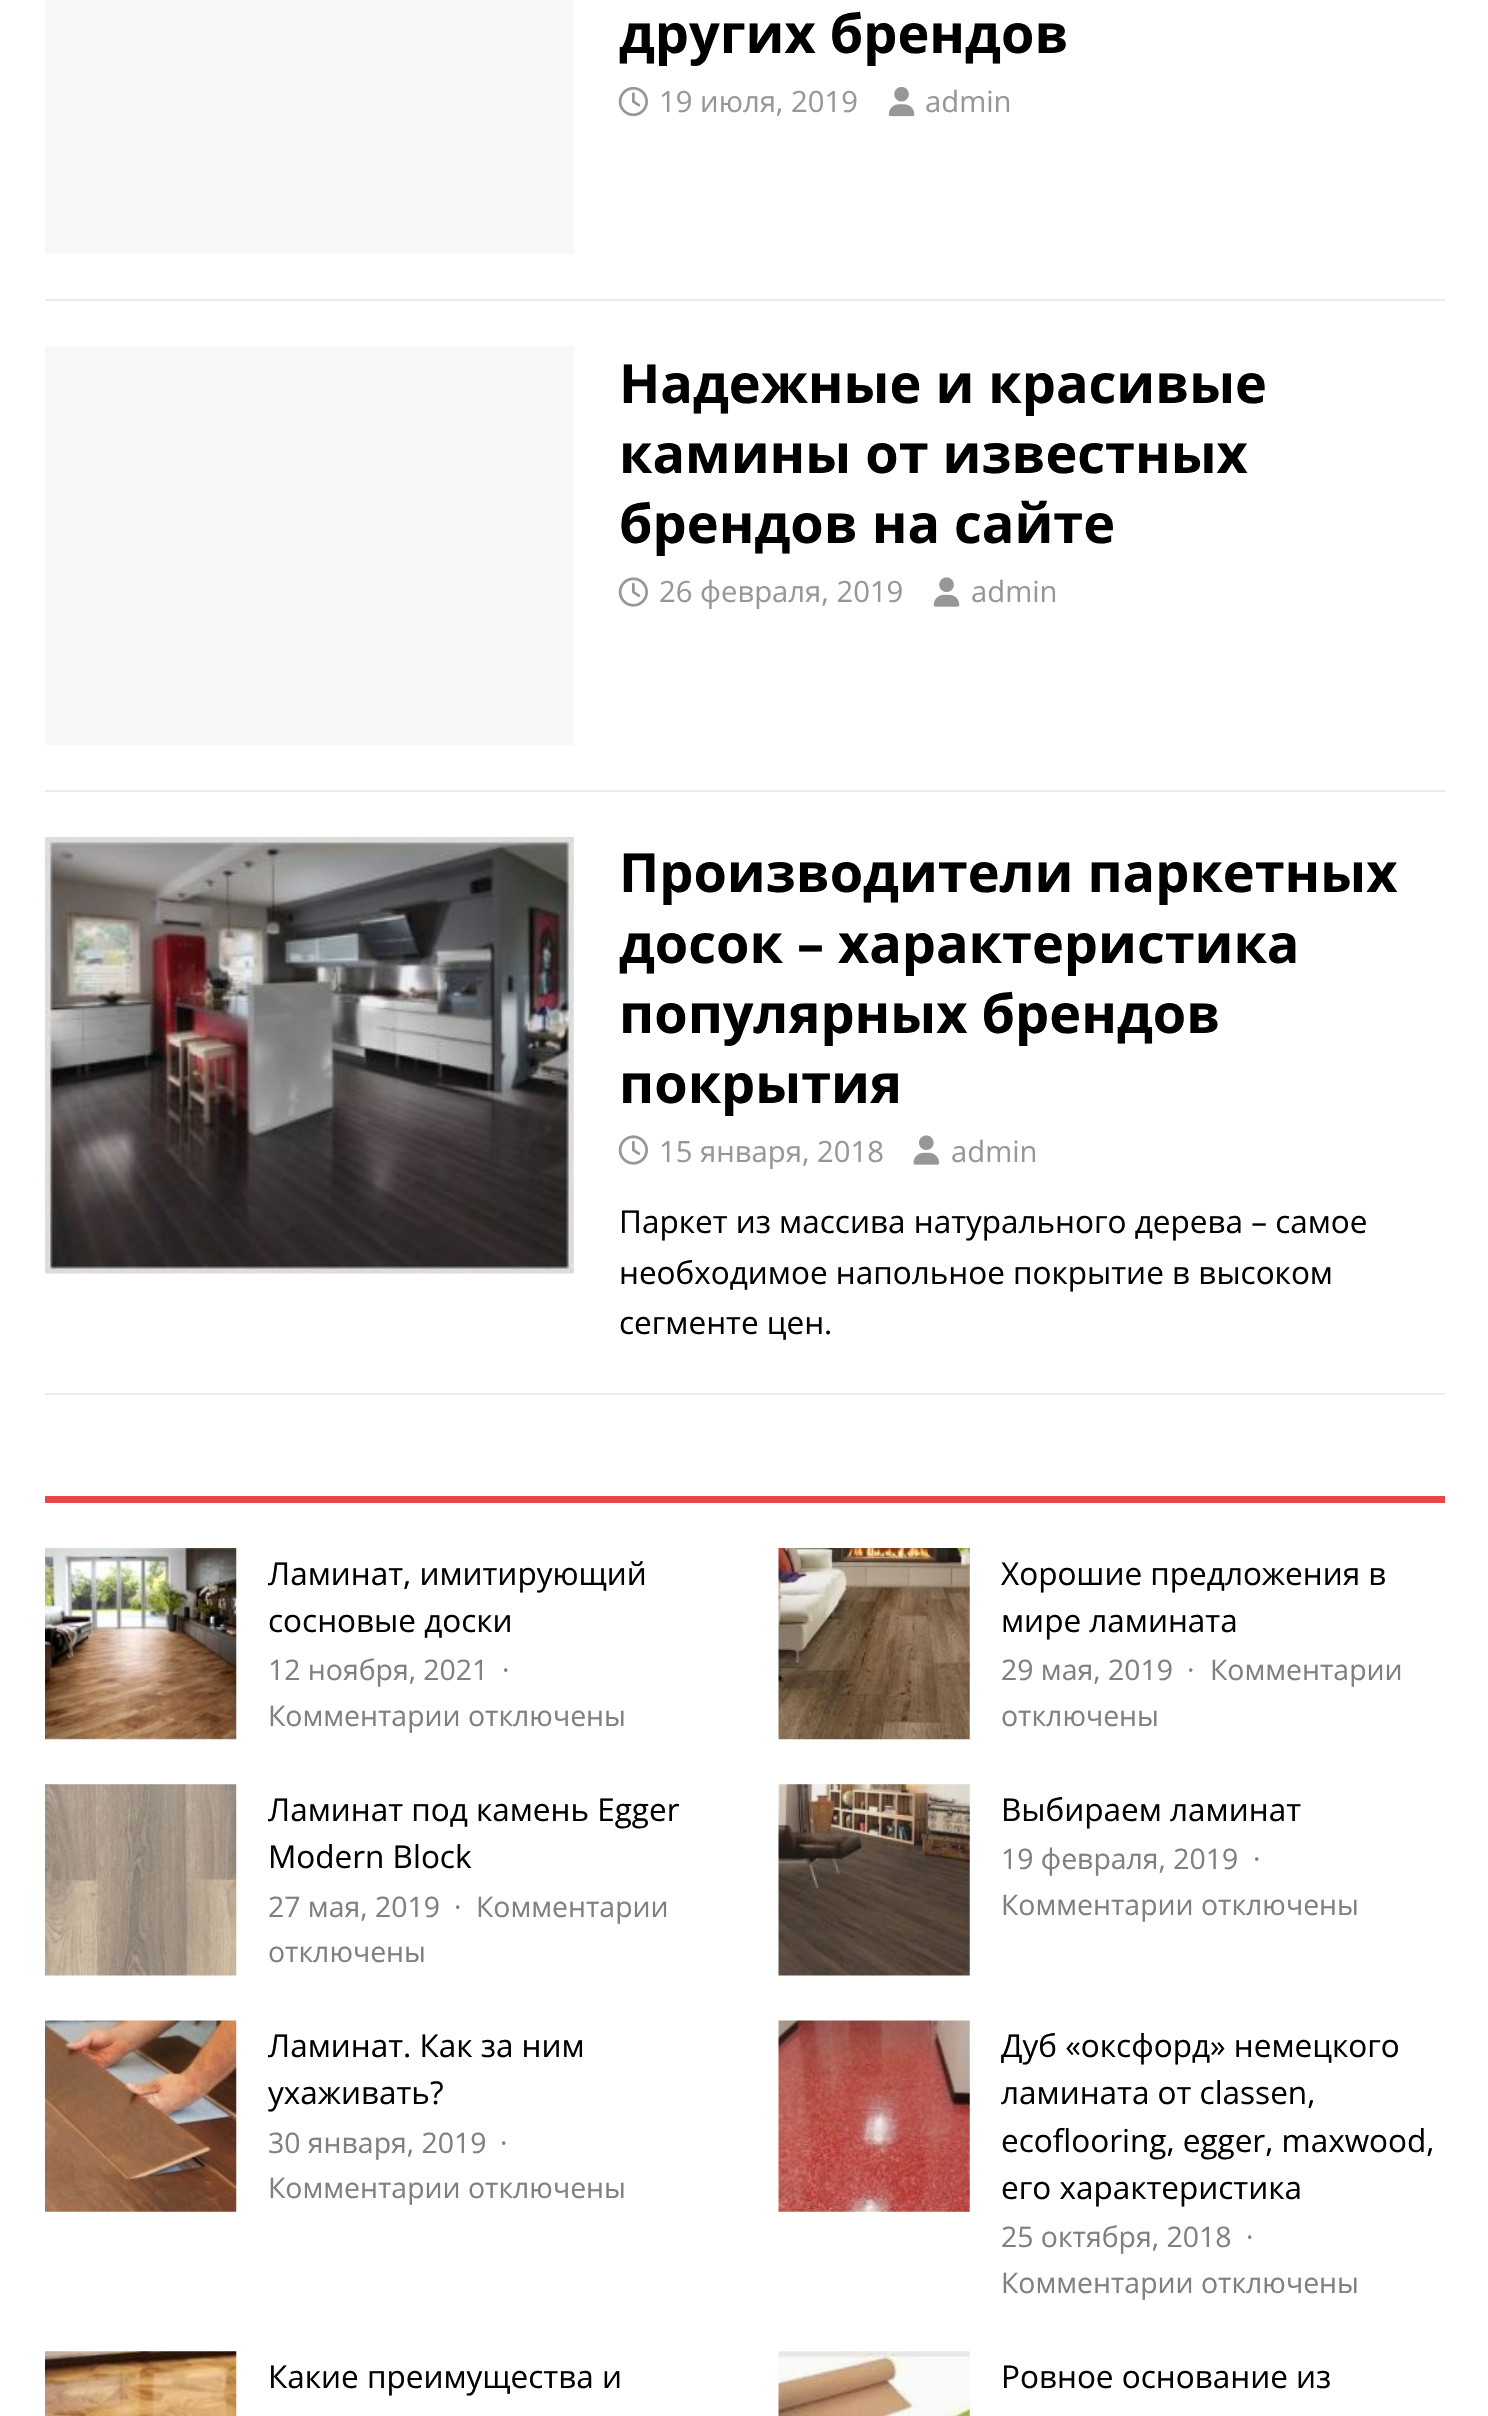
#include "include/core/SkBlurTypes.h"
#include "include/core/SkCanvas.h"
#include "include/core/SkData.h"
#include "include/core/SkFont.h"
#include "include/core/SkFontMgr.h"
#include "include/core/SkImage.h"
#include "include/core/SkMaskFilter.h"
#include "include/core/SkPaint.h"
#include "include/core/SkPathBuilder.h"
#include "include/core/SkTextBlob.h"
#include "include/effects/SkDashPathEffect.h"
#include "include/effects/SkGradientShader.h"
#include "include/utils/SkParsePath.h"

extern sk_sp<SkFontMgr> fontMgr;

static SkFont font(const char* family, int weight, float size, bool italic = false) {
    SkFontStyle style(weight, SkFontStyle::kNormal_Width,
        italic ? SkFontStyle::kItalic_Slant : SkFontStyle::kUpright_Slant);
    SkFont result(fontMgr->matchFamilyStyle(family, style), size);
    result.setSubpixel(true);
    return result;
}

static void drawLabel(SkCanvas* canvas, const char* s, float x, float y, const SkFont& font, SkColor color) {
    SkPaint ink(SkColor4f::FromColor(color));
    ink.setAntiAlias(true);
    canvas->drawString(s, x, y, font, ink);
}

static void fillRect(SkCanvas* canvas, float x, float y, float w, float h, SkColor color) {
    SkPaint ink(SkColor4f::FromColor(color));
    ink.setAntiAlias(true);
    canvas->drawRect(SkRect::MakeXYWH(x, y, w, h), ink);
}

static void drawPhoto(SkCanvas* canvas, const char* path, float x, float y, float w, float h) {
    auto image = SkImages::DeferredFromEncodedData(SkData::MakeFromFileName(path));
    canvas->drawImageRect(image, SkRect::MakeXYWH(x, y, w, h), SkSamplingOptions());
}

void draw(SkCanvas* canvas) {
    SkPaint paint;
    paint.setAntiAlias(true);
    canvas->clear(0xFFFFFFFF);
    fillRect(canvas, 45, 299, 1400, 2, 0xFFEBEBEB);
    fillRect(canvas, 45, 0, 529, 254, 0xFFF7F7F7);
    SkFont font1 = font("Open Sans", 700, 54);
    drawLabel(canvas, "других брендов", 619, 53, font1, 0xFF000000);
    drawPhoto(canvas, "assets/img1.png", 618, 86, 30, 31);
    SkFont font2 = font("Open Sans", 400, 29.25f);
    drawLabel(canvas, "19 июля, 2019", 659, 112, font2, 0xFF979797);
    drawPhoto(canvas, "assets/img2.png", 888, 86, 27, 31);
    drawLabel(canvas, "admin", 925, 112, font2, 0xFF979797);
    fillRect(canvas, 45, 790, 1400, 2, 0xFFEBEBEB);
    fillRect(canvas, 45, 346, 529, 399, 0xFFF7F7F7);
    drawLabel(canvas, "Надежные и красивые", 619, 403, font1, 0xFF000000);
    drawLabel(canvas, "камины от известных", 619, 473, font1, 0xFF000000);
    drawLabel(canvas, "брендов на сайте", 619, 543, font1, 0xFF000000);
    drawPhoto(canvas, "assets/img3.png", 618, 577, 30, 30);
    drawLabel(canvas, "26 февраля, 2019", 659, 602, font2, 0xFF979797);
    drawPhoto(canvas, "assets/img4.png", 933, 577, 27, 30);
    drawLabel(canvas, "admin", 971, 602, font2, 0xFF979797);
    fillRect(canvas, 45, 1393, 1400, 2, 0xFFEBEBEB);
    drawPhoto(canvas, "assets/img5.png", 45, 837, 529, 437);
    drawLabel(canvas, "Производители паркетных", 619, 892, font1, 0xFF000000);
    drawLabel(canvas, "досок – характеристика", 619, 963, font1, 0xFF000000);
    drawLabel(canvas, "популярных брендов", 619, 1033, font1, 0xFF000000);
    drawLabel(canvas, "покрытия", 619, 1103, font1, 0xFF000000);
    drawPhoto(canvas, "assets/img3.png", 618, 1135, 30, 30);
    drawLabel(canvas, "15 января, 2018", 659, 1162, font2, 0xFF979797);
    drawPhoto(canvas, "assets/img6.png", 913, 1135, 27, 30);
    drawLabel(canvas, "admin", 951, 1162, font2, 0xFF979797);
    SkFont font3 = font("Open Sans", 400, 31.5f);
    drawLabel(canvas, "Паркет из массива натурального дерева – самое", 619, 1233, font3, 0xFF000000);
    drawLabel(canvas, "необходимое напольное покрытие в высоком", 619, 1284, font3, 0xFF000000);
    drawLabel(canvas, "сегменте цен.", 619, 1334, font3, 0xFF000000);
    fillRect(canvas, 45, 1496, 1400, 7, 0xFFE64946);
    drawPhoto(canvas, "assets/img7.png", 45, 1548, 192, 192);
    drawLabel(canvas, "Ламинат, имитирующий", 268, 1585, font3, 0xFF000000);
    drawLabel(canvas, "сосновые доски", 268, 1632, font3, 0xFF000000);
    SkFont font4 = font("Open Sans", 400, 28.4f);
    drawLabel(canvas, "12 ноября, 2021", 268, 1680, font4, 0xFF808080);
    drawLabel(canvas, "·", 502, 1680, font4, 0xFF808080);
    drawLabel(canvas, "Комментарии отключены", 268, 1726, font4, 0xFF808080);
    drawPhoto(canvas, "assets/img8.png", 778, 1548, 192, 192);
    drawLabel(canvas, "Хорошие предложения в", 1001, 1585, font3, 0xFF000000);
    drawLabel(canvas, "мире ламината", 1001, 1632, font3, 0xFF000000);
    drawLabel(canvas, "29 мая, 2019", 1001, 1680, font4, 0xFF808080);
    drawLabel(canvas, "·", 1187, 1680, font4, 0xFF808080);
    drawLabel(canvas, "Комментарии", 1210, 1680, font4, 0xFF808080);
    drawLabel(canvas, "отключены", 1001, 1726, font4, 0xFF808080);
    drawPhoto(canvas, "assets/img9.png", 45, 1784, 192, 192);
    drawLabel(canvas, "Ламинат под камень Egger", 268, 1821, font3, 0xFF000000);
    drawLabel(canvas, "Modern Block", 268, 1868, font3, 0xFF000000);
    drawLabel(canvas, "27 мая, 2019", 268, 1917, font4, 0xFF808080);
    drawLabel(canvas, "·", 454, 1917, font4, 0xFF808080);
    drawLabel(canvas, "Комментарии", 476, 1917, font4, 0xFF808080);
    drawLabel(canvas, "отключены", 268, 1962, font4, 0xFF808080);
    drawPhoto(canvas, "assets/img10.png", 778, 1784, 192, 192);
    drawLabel(canvas, "Выбираем ламинат", 1001, 1821, font3, 0xFF000000);
    drawLabel(canvas, "19 февраля, 2019", 1001, 1869, font4, 0xFF808080);
    drawLabel(canvas, "·", 1253, 1869, font4, 0xFF808080);
    drawLabel(canvas, "Комментарии отключены", 1001, 1915, font4, 0xFF808080);
    drawPhoto(canvas, "assets/img11.png", 45, 2020, 192, 192);
    drawLabel(canvas, "Ламинат. Как за ним", 268, 2057, font3, 0xFF000000);
    drawLabel(canvas, "ухаживать?", 268, 2104, font3, 0xFF000000);
    drawLabel(canvas, "30 января, 2019", 268, 2153, font4, 0xFF808080);
    drawLabel(canvas, "·", 500, 2153, font4, 0xFF808080);
    drawLabel(canvas, "Комментарии отключены", 268, 2198, font4, 0xFF808080);
    drawPhoto(canvas, "assets/img12.png", 778, 2020, 192, 192);
    drawLabel(canvas, "Дуб «оксфорд» немецкого", 1001, 2057, font3, 0xFF000000);
    drawLabel(canvas, "ламината от classen,", 1001, 2104, font3, 0xFF000000);
    drawLabel(canvas, "ecoflooring, egger, maxwood,", 1001, 2152, font3, 0xFF000000);
    drawLabel(canvas, "его характеристика", 1001, 2199, font3, 0xFF000000);
    drawLabel(canvas, "25 октября, 2018", 1001, 2247, font4, 0xFF808080);
    drawLabel(canvas, "·", 1246, 2247, font4, 0xFF808080);
    drawLabel(canvas, "Комментарии отключены", 1001, 2293, font4, 0xFF808080);
    drawPhoto(canvas, "assets/img13.png", 45, 2351, 192, 65);
    drawLabel(canvas, "Какие преимущества и", 268, 2388, font3, 0xFF000000);
    drawPhoto(canvas, "assets/img14.png", 778, 2351, 192, 65);
    drawLabel(canvas, "Ровное основание из", 1001, 2388, font3, 0xFF000000);
}
